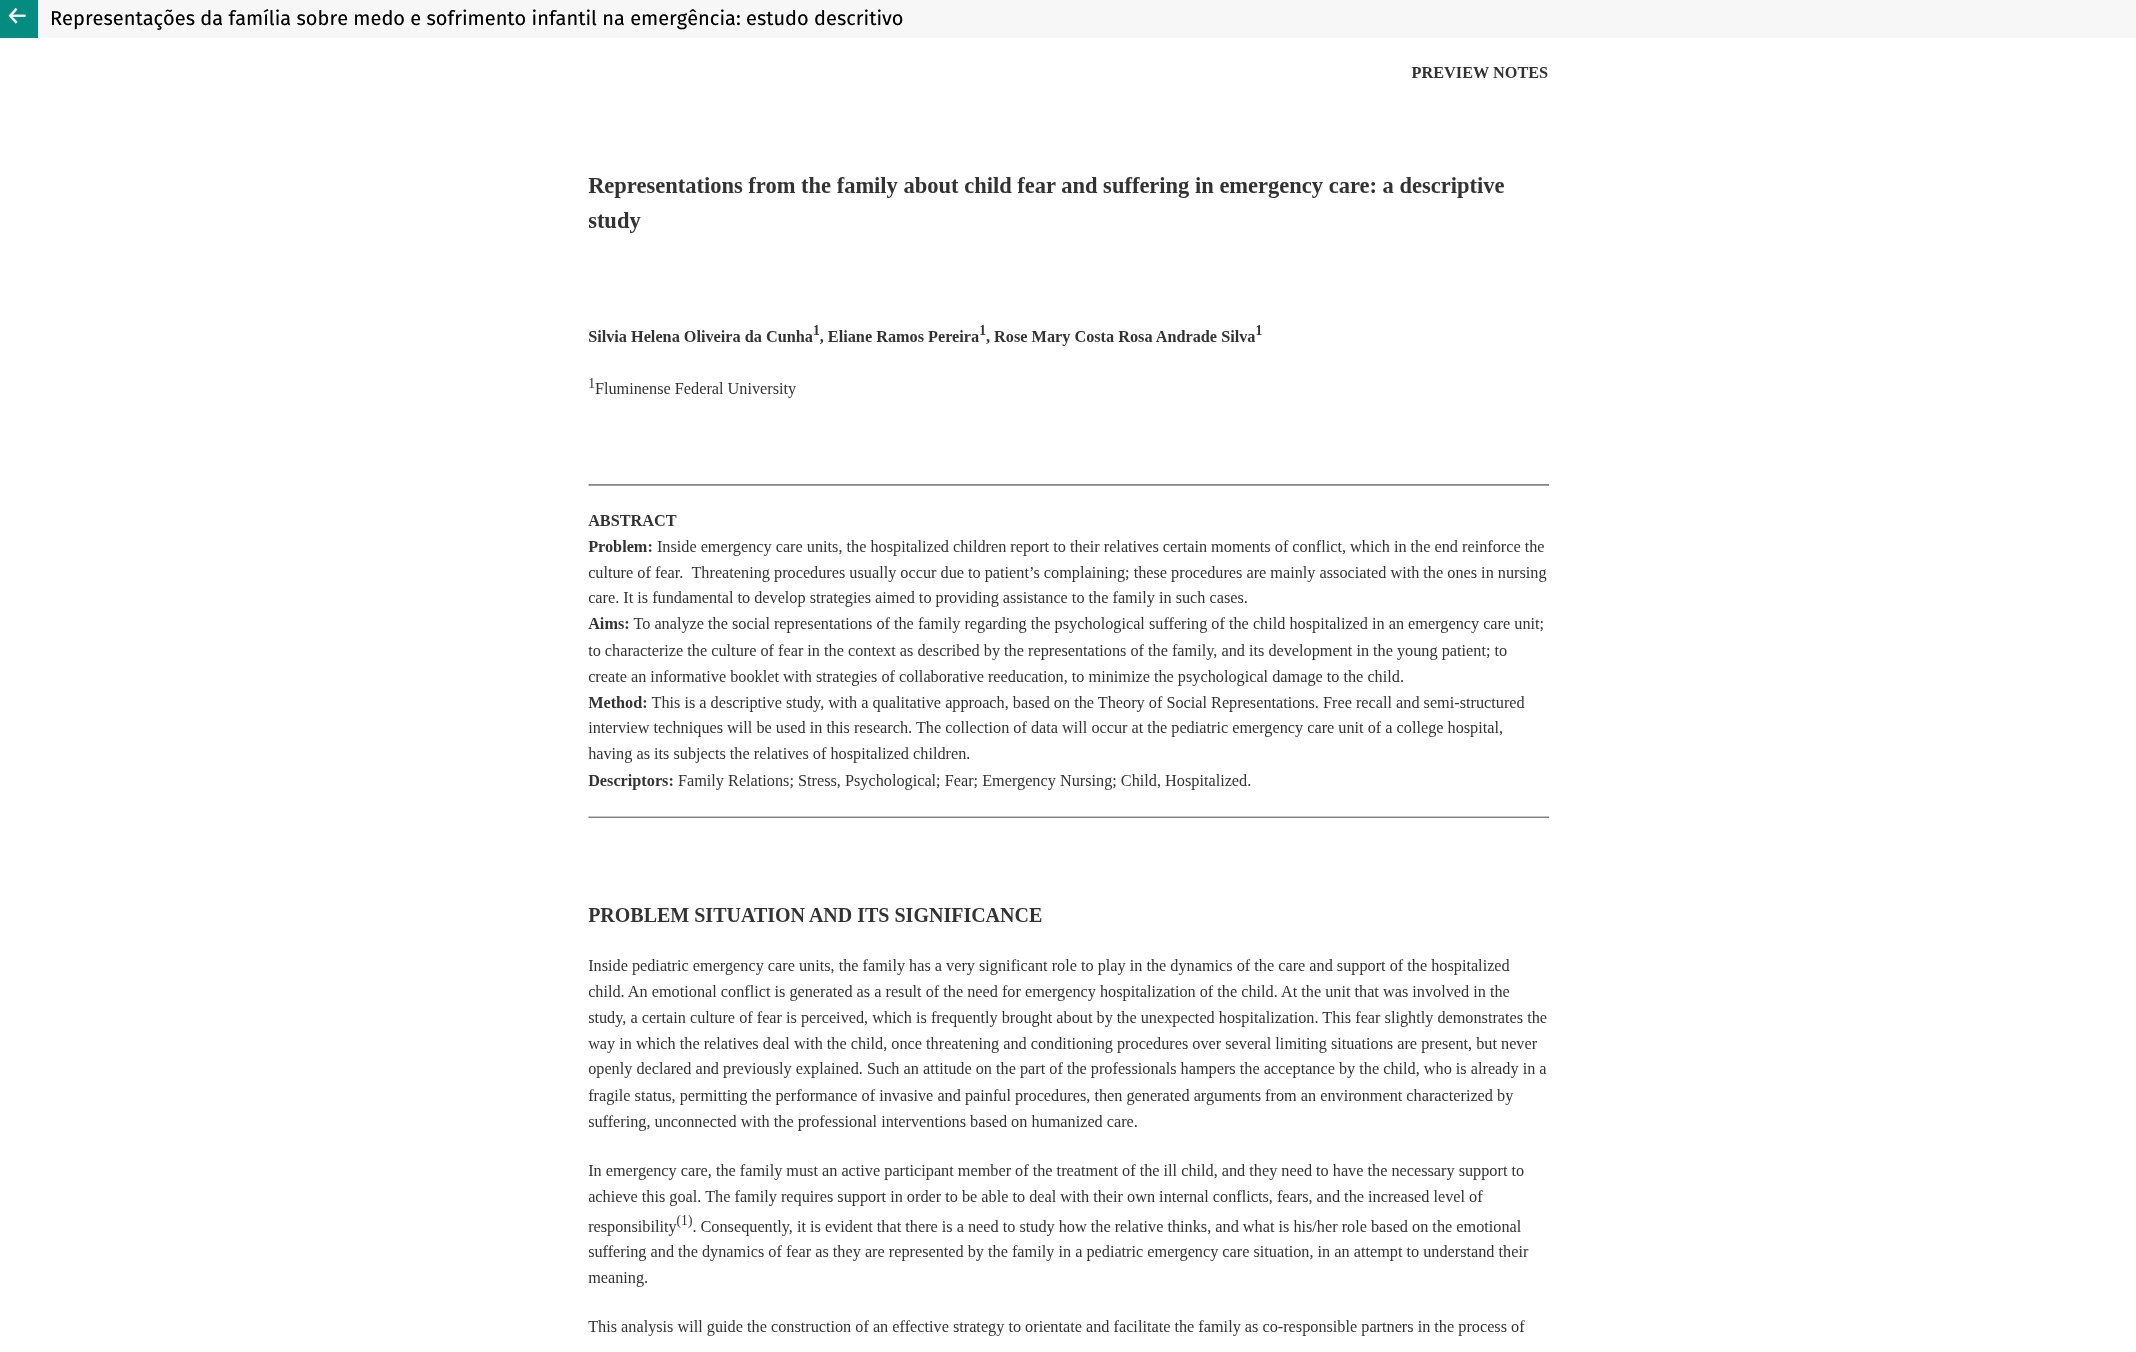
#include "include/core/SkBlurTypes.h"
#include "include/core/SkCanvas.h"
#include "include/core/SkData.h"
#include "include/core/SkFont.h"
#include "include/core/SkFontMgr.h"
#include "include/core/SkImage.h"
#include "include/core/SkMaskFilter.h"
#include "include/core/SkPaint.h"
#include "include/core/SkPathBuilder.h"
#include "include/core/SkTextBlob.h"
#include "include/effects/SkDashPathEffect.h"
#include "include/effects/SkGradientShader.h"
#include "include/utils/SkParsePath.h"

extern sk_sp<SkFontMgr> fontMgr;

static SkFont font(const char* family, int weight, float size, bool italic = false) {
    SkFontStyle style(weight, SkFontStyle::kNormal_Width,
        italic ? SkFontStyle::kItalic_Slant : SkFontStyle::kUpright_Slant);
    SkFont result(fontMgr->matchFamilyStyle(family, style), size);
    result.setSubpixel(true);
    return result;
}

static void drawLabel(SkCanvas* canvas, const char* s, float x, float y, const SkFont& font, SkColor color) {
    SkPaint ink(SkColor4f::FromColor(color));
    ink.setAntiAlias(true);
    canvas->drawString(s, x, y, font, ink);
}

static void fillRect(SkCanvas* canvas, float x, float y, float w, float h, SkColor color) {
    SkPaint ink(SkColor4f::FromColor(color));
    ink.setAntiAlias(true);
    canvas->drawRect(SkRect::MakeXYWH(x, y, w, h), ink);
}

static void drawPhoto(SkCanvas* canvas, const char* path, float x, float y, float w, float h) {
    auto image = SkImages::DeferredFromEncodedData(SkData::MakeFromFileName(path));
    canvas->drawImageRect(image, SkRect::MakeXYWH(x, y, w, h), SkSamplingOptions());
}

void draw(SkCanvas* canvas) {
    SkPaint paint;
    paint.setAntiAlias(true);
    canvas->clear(0xFFFFFFFF);
    fillRect(canvas, 38, 0, 2098, 38, 0xFFF7F7F7);
    fillRect(canvas, 0, 0, 38, 38, 0xFF038C7F);
    SkFont font1 = font("Fira Sans", 400, 25);
    drawLabel(canvas, "←", 6, 24, font1, 0xFFFFFFFF);
    SkFont font2 = font("Fira Sans", 400, 20);
    drawLabel(canvas, "Representações da família sobre medo e sofrimento infantil na emergência: estudo descritivo", 50, 25, font2, 0xFF000000);
    drawPhoto(canvas, "assets/img1.png", 588, 67, 961, 1269);
}
